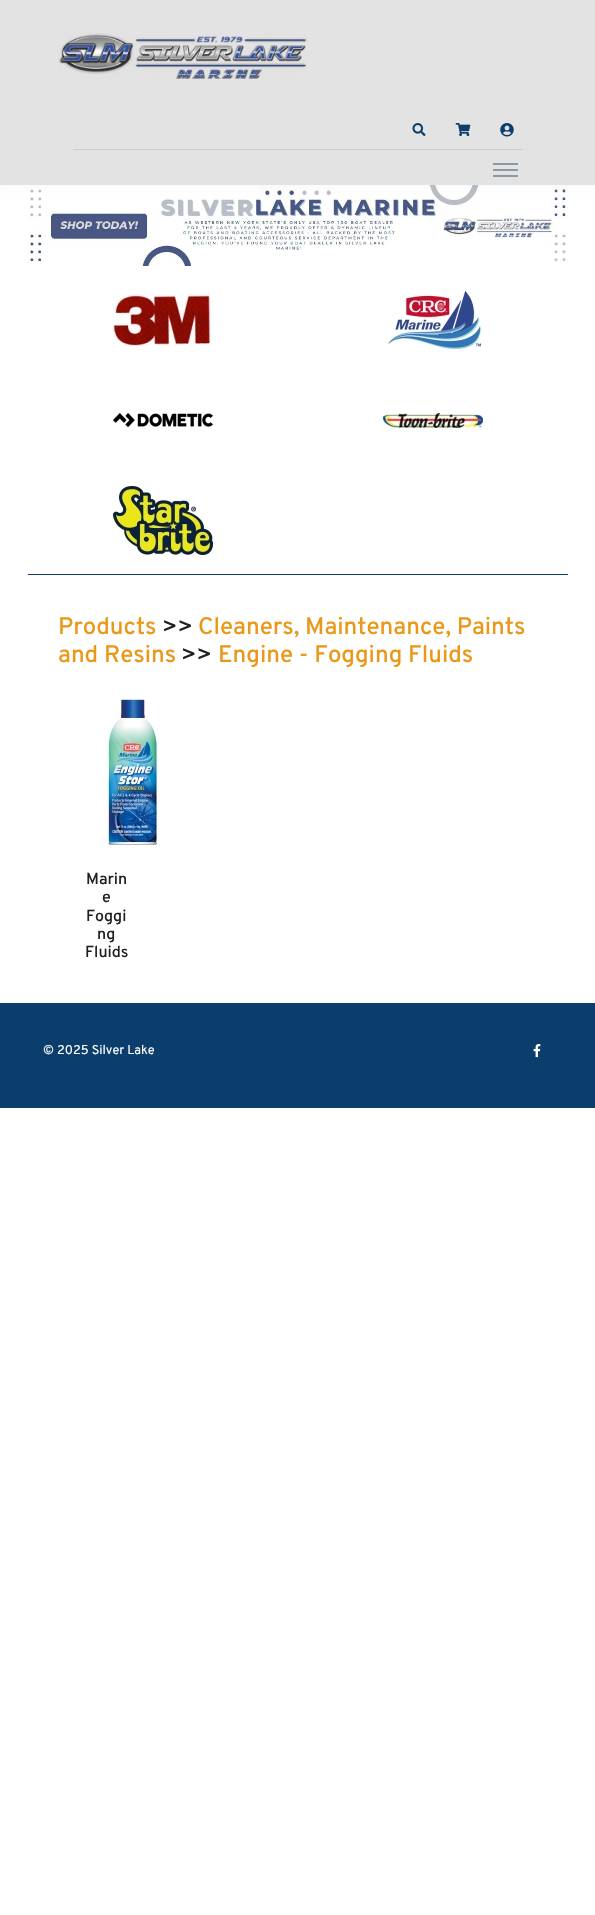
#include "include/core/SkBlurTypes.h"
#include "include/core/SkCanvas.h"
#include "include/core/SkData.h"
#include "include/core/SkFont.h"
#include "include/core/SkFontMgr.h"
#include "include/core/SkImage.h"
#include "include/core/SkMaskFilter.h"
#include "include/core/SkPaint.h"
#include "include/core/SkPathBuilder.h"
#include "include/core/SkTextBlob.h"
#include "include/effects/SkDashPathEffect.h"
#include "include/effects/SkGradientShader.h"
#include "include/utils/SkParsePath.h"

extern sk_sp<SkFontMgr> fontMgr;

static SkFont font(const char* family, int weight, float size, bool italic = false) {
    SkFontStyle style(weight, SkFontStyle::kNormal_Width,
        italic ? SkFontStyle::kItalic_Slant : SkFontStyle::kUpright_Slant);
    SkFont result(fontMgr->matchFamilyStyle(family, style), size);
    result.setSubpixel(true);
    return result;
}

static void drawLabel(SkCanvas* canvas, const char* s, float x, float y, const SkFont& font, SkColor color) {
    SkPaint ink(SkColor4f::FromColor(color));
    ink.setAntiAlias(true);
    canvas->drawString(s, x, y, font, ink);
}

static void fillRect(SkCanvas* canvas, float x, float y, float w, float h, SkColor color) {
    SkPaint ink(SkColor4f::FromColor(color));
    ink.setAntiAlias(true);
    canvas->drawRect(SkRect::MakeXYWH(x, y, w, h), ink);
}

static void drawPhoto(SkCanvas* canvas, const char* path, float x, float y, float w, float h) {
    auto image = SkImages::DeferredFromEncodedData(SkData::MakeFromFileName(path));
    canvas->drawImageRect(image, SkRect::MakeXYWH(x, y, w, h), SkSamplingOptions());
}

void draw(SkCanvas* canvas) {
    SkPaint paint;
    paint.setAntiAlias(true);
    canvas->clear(0xFFFFFFFF);
    drawPhoto(canvas, "assets/img5.png", 28, 185, 540, 81);
    paint.setColor(0x1A97A4AF);
    paint.setMaskFilter(SkMaskFilter::MakeBlur(kNormal_SkBlurStyle, 5));
    canvas->drawRect(SkRect::MakeXYWH(0, 1, 595, 185), paint);
    paint.setMaskFilter(nullptr);
    fillRect(canvas, 0, 0, 595, 185, 0xFFE3E3E3);
    drawPhoto(canvas, "assets/img1.png", 58, 33, 250, 46);
    fillRect(canvas, 73, 149, 450, 1, 0xFFCCCCCC);
    drawPhoto(canvas, "assets/img2.png", 412, 123, 14, 13);
    drawPhoto(canvas, "assets/img3.png", 455, 123, 16, 14);
    drawPhoto(canvas, "assets/img4.png", 500, 123, 14, 14);
    fillRect(canvas, 493, 163, 25, 2, 0xFF8C98A4);
    fillRect(canvas, 493, 169, 25, 2, 0xFF8C98A4);
    fillRect(canvas, 493, 175, 25, 2, 0xFF8C98A4);
    fillRect(canvas, 28, 574, 540, 1, 0xFF0B3E6D);
    drawPhoto(canvas, "assets/img6.png", 113, 294, 98, 52);
    drawPhoto(canvas, "assets/img7.png", 388, 290, 94, 60);
    drawPhoto(canvas, "assets/img8.png", 113, 413, 100, 14);
    drawPhoto(canvas, "assets/img9.png", 383, 413, 100, 17);
    drawPhoto(canvas, "assets/img10.png", 113, 486, 100, 69);
    SkFont font1 = font("Overpass", 500, 24);
    drawLabel(canvas, "Products", 58, 634, font1, 0xFFE99818);
    drawLabel(canvas, ">>", 162, 634, font1, 0xFF1E2022);
    drawLabel(canvas, "Cleaners, Maintenance, Paints", 198, 634, font1, 0xFFE99818);
    drawLabel(canvas, "and Resins", 58, 662, font1, 0xFFE99818);
    drawLabel(canvas, ">>", 181, 662, font1, 0xFF1E2022);
    drawLabel(canvas, "Engine - Fogging Fluids", 218, 662, font1, 0xFFE99818);
    drawPhoto(canvas, "assets/img11.png", 107, 698, 52, 147);
    SkFont font2 = font("Overpass", 500, 16);
    drawLabel(canvas, "Marin", 86, 884, font2, 0xFF1E2022);
    drawLabel(canvas, "e", 102, 902, font2, 0xFF1E2022);
    drawLabel(canvas, "Foggi", 86, 921, font2, 0xFF1E2022);
    drawLabel(canvas, "ng", 97, 939, font2, 0xFF1E2022);
    drawLabel(canvas, "Fluids", 85, 957, font2, 0xFF1E2022);
    fillRect(canvas, 0, 1003, 595, 105, 0xFF0B3E6D);
    SkFont font3 = font("Overpass", 400, 12.75f);
    drawLabel(canvas, "© 2025 Silver Lake", 43, 1054, font3, 0xFFFFFFFF);
    drawPhoto(canvas, "assets/img12.png", 533, 1044, 8, 14);
}
